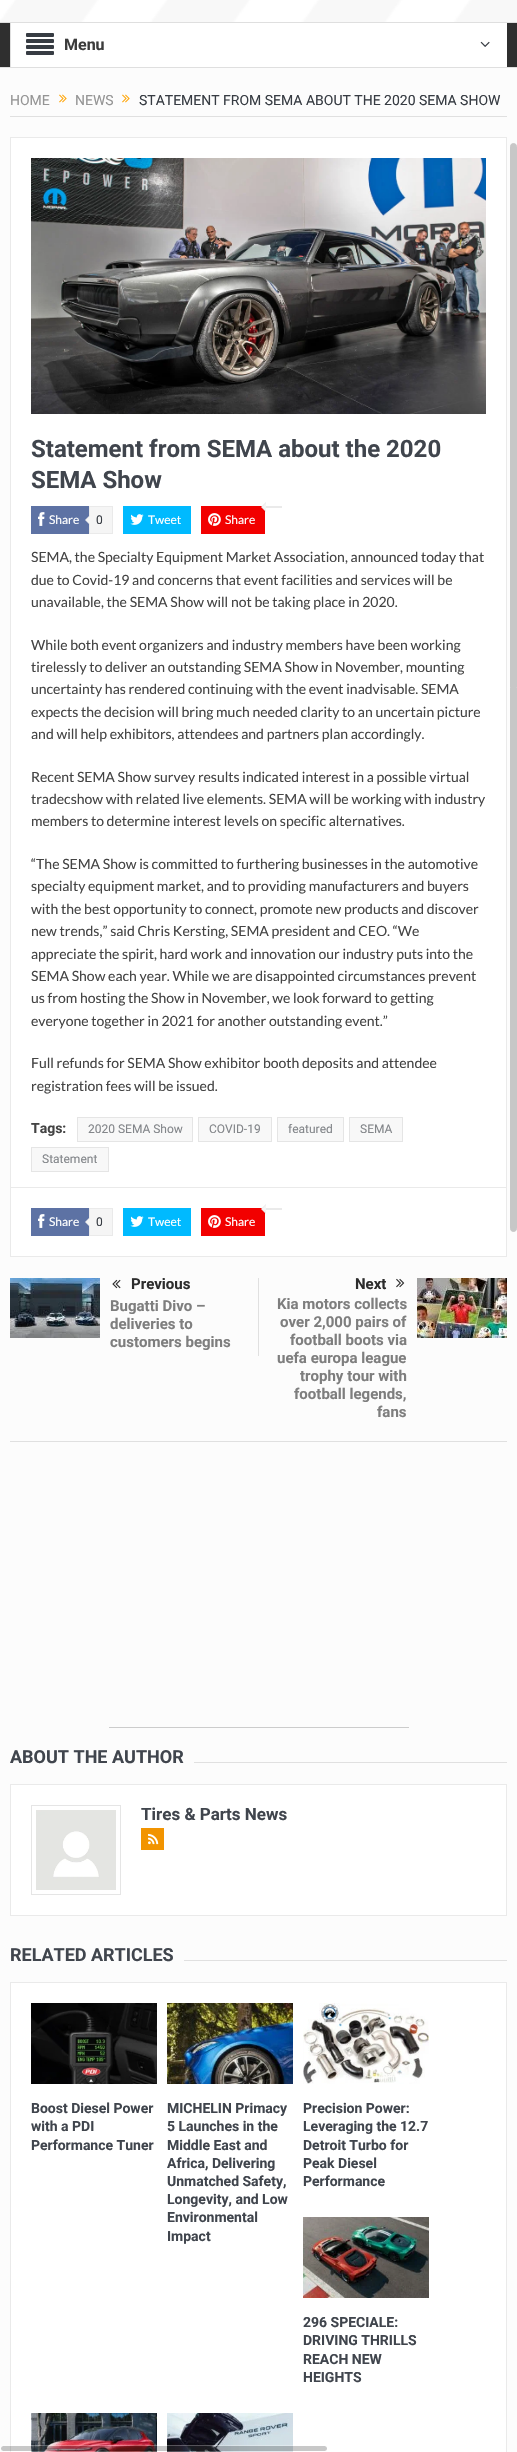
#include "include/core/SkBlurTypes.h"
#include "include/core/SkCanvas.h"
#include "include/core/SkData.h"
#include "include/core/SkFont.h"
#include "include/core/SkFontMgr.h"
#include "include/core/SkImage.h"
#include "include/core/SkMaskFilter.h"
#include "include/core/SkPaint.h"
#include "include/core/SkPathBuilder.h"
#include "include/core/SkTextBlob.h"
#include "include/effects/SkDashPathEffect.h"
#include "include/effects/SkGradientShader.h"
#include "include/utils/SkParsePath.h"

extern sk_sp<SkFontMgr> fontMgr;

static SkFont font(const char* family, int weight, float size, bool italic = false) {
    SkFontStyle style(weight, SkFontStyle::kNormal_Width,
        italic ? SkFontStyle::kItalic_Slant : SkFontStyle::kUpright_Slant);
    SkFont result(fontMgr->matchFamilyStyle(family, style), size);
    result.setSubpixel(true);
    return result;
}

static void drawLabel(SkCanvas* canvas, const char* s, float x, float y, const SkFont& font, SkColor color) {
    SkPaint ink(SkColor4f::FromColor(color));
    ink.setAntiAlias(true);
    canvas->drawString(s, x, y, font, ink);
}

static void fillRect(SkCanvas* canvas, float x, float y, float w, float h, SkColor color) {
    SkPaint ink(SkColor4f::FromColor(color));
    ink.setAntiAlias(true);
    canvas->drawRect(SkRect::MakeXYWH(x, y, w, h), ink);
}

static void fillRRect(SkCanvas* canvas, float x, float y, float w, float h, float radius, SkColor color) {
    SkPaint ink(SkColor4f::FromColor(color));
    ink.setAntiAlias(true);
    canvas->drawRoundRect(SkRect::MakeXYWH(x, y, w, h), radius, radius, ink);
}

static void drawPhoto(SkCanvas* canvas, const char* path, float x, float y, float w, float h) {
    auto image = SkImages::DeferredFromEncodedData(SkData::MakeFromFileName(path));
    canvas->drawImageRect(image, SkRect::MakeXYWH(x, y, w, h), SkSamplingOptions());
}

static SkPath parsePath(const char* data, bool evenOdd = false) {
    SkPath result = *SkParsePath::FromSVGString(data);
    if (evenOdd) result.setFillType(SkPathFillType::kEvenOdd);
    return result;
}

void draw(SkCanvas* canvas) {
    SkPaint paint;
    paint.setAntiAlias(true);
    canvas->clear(0xFFFCFCFC);
    fillRect(canvas, 0, 0, 517, 22, 0xFFFFFFFF);
    drawPhoto(canvas, "assets/img1.png", 0, 0, 517, 22);
    fillRect(canvas, 0, 22, 517, 1, 0xFFDFDFDF);
    fillRect(canvas, 0, 23, 517, 44, 0xFF2F2F2F);
    fillRect(canvas, 0, 67, 517, 1, 0xFFDFDFDF);
    fillRect(canvas, 11, 23, 496, 44, 0xFFFFFFFF);
    fillRect(canvas, 10, 23, 1, 44, 0xFFDFDFDF);
    drawPhoto(canvas, "assets/img2.png", 26, 33, 28, 22);
    SkFont font1 = font("Roboto", 700, 16);
    drawLabel(canvas, "Menu", 64, 50, font1, 0xFF3C3C3C);
    drawPhoto(canvas, "assets/img3.png", 480, 41, 10, 6);
    fillRect(canvas, 10, 116, 497, 1, 0xFFE0E0E0);
    SkFont font2 = font("Roboto", 400, 14);
    drawLabel(canvas, "HOME", 10, 105, font2, 0xFF959595);
    drawPhoto(canvas, "assets/img4.png", 59, 94, 8, 9);
    drawLabel(canvas, "NEWS", 75, 105, font2, 0xFF959595);
    drawPhoto(canvas, "assets/img4.png", 122, 94, 8, 9);
    drawLabel(canvas, "STATEMENT FROM SEMA ABOUT THE 2020 SEMA SHOW", 139, 105, font2, 0xFF373C43);
    paint.setColor(0xFFFFFFFF);
    canvas->drawRect(SkRect::MakeXYWH(10.5f, 137.5f, 496, 1119), paint);
    paint.setStroke(true);
    paint.setStrokeWidth(1);
    paint.setColor(0xFFEAEAEA);
    canvas->drawRect(SkRect::MakeXYWH(10.5f, 137.5f, 496, 1119), paint);
    drawPhoto(canvas, "assets/img5.png", 31, 158, 455, 256);
    SkFont font3 = font("Roboto", 700, 24);
    drawLabel(canvas, "Statement from SEMA about the 2020", 31, 457, font3, 0xFF40454D);
    drawLabel(canvas, "SEMA Show", 31, 488, font3, 0xFF40454D);
    fillRect(canvas, 31, 506, 58, 28, 0xFF5D72A4);
    drawPhoto(canvas, "assets/img6.png", 38, 512, 7, 14);
    SkFont font4 = font("Lato", 400, 12);
    drawLabel(canvas, "Share", 49, 524, font4, 0xFFFFFFFF);
    paint.setStroke(false);
    paint.setColor(0xFFF5F5F5);
    canvas->drawRect(SkRect::MakeXYWH(89.5f, 506.5f, 23, 27), paint);
    paint.setStroke(true);
    paint.setColor(0xFFEAEAEA);
    canvas->drawRect(SkRect::MakeXYWH(89.5f, 506.5f, 23, 27), paint);
    paint.setStroke(false);
    canvas->drawPath(parsePath("M90 515V525L85 520Z"), paint);
    SkFont font5 = font("Roboto", 400, 12);
    drawLabel(canvas, "0", 96, 524, font5, 0xFF373C43);
    paint.setColor(0xFFF5F5F5);
    canvas->drawPath(parsePath("M90 516V524L86 520Z"), paint);
    fillRect(canvas, 123, 506, 68, 28, 0xFF00BAFF);
    drawPhoto(canvas, "assets/img7.png", 130, 514, 14, 11);
    drawLabel(canvas, "Tweet", 148, 524, font4, 0xFFFFFFFF);
    fillRect(canvas, 265, 506, 17, 2, 0xFFEAEAEA);
    fillRect(canvas, 201, 506, 64, 28, 0xFFF20000);
    paint.setColor(0xFFEAEAEA);
    canvas->drawPath(parsePath("M266 502V512L261 507Z"), paint);
    paint.setColor(0xFFF5F5F5);
    canvas->drawPath(parsePath("M266 503V511L262 507Z"), paint);
    drawPhoto(canvas, "assets/img8.png", 208, 513, 13, 13);
    drawLabel(canvas, "Share", 225, 524, font4, 0xFFFFFFFF);
    SkFont font6 = font("Lato", 400, 14);
    drawLabel(canvas, "SEMA, the Specialty Equipment Market Association, announced today that", 31, 562, font6, 0xFF444444);
    drawLabel(canvas, "due to Covid-19 and concerns that event facilities and services will be", 31, 585, font6, 0xFF444444);
    drawLabel(canvas, "unavailable, the SEMA Show will not be taking place in 2020.", 31, 607, font6, 0xFF444444);
    drawLabel(canvas, "While both event organizers and industry members have been working", 31, 650, font6, 0xFF444444);
    drawLabel(canvas, "tirelessly to deliver an outstanding SEMA Show in November, mounting", 31, 672, font6, 0xFF444444);
    drawLabel(canvas, "uncertainty has rendered continuing with the event inadvisable. SEMA", 31, 694, font6, 0xFF444444);
    drawLabel(canvas, "expects the decision will bring much needed clarity to an uncertain picture", 31, 717, font6, 0xFF444444);
    drawLabel(canvas, "and will help exhibitors, attendees and partners plan accordingly.", 31, 739, font6, 0xFF444444);
    drawLabel(canvas, "Recent SEMA Show survey results indicated interest in a possible virtual", 31, 782, font6, 0xFF444444);
    drawLabel(canvas, "tradecshow with related live elements. SEMA will be working with industry", 31, 804, font6, 0xFF444444);
    drawLabel(canvas, "members to determine interest levels on specific alternatives.", 31, 826, font6, 0xFF444444);
    drawLabel(canvas, "“The SEMA Show is committed to furthering businesses in the automotive", 31, 869, font6, 0xFF444444);
    drawLabel(canvas, "specialty equipment market, and to providing manufacturers and buyers", 31, 891, font6, 0xFF444444);
    drawLabel(canvas, "with the best opportunity to connect, promote new products and discover", 31, 914, font6, 0xFF444444);
    drawLabel(canvas, "new trends,” said Chris Kersting, SEMA president and CEO. “We", 31, 936, font6, 0xFF444444);
    drawLabel(canvas, "appreciate the spirit, hard work and innovation our industry puts into the", 31, 959, font6, 0xFF444444);
    drawLabel(canvas, "SEMA Show each year. While we are disappointed circumstances prevent", 31, 981, font6, 0xFF444444);
    drawLabel(canvas, "us from hosting the Show in November, we look forward to getting", 31, 1003, font6, 0xFF444444);
    drawLabel(canvas, "everyone together in 2021 for another outstanding event.”", 31, 1026, font6, 0xFF444444);
    drawLabel(canvas, "Full refunds for SEMA Show exhibitor booth deposits and attendee", 31, 1068, font6, 0xFF444444);
    drawLabel(canvas, "registration fees will be issued.", 31, 1091, font6, 0xFF444444);
    SkFont font7 = font("Roboto", 700, 14);
    drawLabel(canvas, "Tags:", 31, 1133, font7, 0xFF444444);
    paint.setColor(0xFFF8F8F8);
    canvas->drawRect(SkRect::MakeXYWH(77.5f, 1117.5f, 115, 24), paint);
    paint.setStroke(true);
    paint.setColor(0xFFE5E5E5);
    canvas->drawRect(SkRect::MakeXYWH(77.5f, 1117.5f, 115, 24), paint);
    drawLabel(canvas, "2020 SEMA Show", 88, 1133, font5, 0xFF83868A);
    paint.setStroke(false);
    paint.setColor(0xFFF8F8F8);
    canvas->drawRect(SkRect::MakeXYWH(198.5f, 1117.5f, 73, 24), paint);
    paint.setStroke(true);
    paint.setColor(0xFFE5E5E5);
    canvas->drawRect(SkRect::MakeXYWH(198.5f, 1117.5f, 73, 24), paint);
    drawLabel(canvas, "COVID-19", 209, 1133, font5, 0xFF83868A);
    paint.setStroke(false);
    paint.setColor(0xFFF8F8F8);
    canvas->drawRect(SkRect::MakeXYWH(277.5f, 1117.5f, 66, 24), paint);
    paint.setStroke(true);
    paint.setColor(0xFFE5E5E5);
    canvas->drawRect(SkRect::MakeXYWH(277.5f, 1117.5f, 66, 24), paint);
    drawLabel(canvas, "featured", 288, 1133, font5, 0xFF83868A);
    paint.setStroke(false);
    paint.setColor(0xFFF8F8F8);
    canvas->drawRect(SkRect::MakeXYWH(349.5f, 1117.5f, 53, 24), paint);
    paint.setStroke(true);
    paint.setColor(0xFFE5E5E5);
    canvas->drawRect(SkRect::MakeXYWH(349.5f, 1117.5f, 53, 24), paint);
    drawLabel(canvas, "SEMA", 360, 1133, font5, 0xFF83868A);
    paint.setStroke(false);
    paint.setColor(0xFFF8F8F8);
    canvas->drawRect(SkRect::MakeXYWH(31.5f, 1147.5f, 77, 24), paint);
    paint.setStroke(true);
    paint.setColor(0xFFE5E5E5);
    canvas->drawRect(SkRect::MakeXYWH(31.5f, 1147.5f, 77, 24), paint);
    drawLabel(canvas, "Statement", 42, 1163, font5, 0xFF83868A);
    fillRect(canvas, 11, 1187, 495, 1, 0xFFEAEAEA);
    fillRect(canvas, 31, 1208, 58, 28, 0xFF5D72A4);
    drawPhoto(canvas, "assets/img6.png", 38, 1214, 7, 14);
    drawLabel(canvas, "Share", 49, 1226, font4, 0xFFFFFFFF);
    paint.setStroke(false);
    paint.setColor(0xFFF5F5F5);
    canvas->drawRect(SkRect::MakeXYWH(89.5f, 1208.5f, 23, 27), paint);
    paint.setStroke(true);
    paint.setColor(0xFFEAEAEA);
    canvas->drawRect(SkRect::MakeXYWH(89.5f, 1208.5f, 23, 27), paint);
    paint.setStroke(false);
    canvas->drawPath(parsePath("M90 1217V1227L85 1222Z"), paint);
    drawLabel(canvas, "0", 96, 1226, font5, 0xFF373C43);
    paint.setColor(0xFFF5F5F5);
    canvas->drawPath(parsePath("M90 1218V1226L86 1222Z"), paint);
    fillRect(canvas, 123, 1208, 68, 28, 0xFF00BAFF);
    drawPhoto(canvas, "assets/img7.png", 130, 1216, 14, 11);
    drawLabel(canvas, "Tweet", 148, 1226, font4, 0xFFFFFFFF);
    fillRect(canvas, 265, 1208, 17, 2, 0xFFEAEAEA);
    fillRect(canvas, 201, 1208, 64, 28, 0xFFF20000);
    paint.setColor(0xFFEAEAEA);
    canvas->drawPath(parsePath("M266 1204V1214L261 1209Z"), paint);
    paint.setColor(0xFFF5F5F5);
    canvas->drawPath(parsePath("M266 1205V1213L262 1209Z"), paint);
    drawPhoto(canvas, "assets/img8.png", 208, 1215, 13, 13);
    drawLabel(canvas, "Share", 225, 1226, font4, 0xFFFFFFFF);
    fillRect(canvas, 10, 1441, 497, 1, 0xFFE0E0E0);
    drawPhoto(canvas, "assets/img9.png", 10, 1278, 90, 60);
    drawPhoto(canvas, "assets/img10.png", 112, 1279, 9, 10);
    SkFont font8 = font("Roboto", 700, 15);
    drawLabel(canvas, "Previous", 131, 1289, font8, 0xFF2D2D2D);
    drawLabel(canvas, "Bugatti Divo –", 110, 1311, font8, 0xFF7E7E7E);
    drawLabel(canvas, "deliveries to", 110, 1329, font8, 0xFF7E7E7E);
    drawLabel(canvas, "customers begins", 110, 1347, font8, 0xFF7E7E7E);
    fillRect(canvas, 258, 1278, 1, 78, 0xFFE0E0E0);
    drawLabel(canvas, "Next", 355, 1289, font8, 0xFF2D2D2D);
    drawPhoto(canvas, "assets/img11.png", 396, 1278, 9, 10);
    drawLabel(canvas, "Kia motors collects", 277, 1309, font8, 0xFF7E7E7E);
    drawLabel(canvas, "over 2,000 pairs of", 280, 1327, font8, 0xFF7E7E7E);
    drawLabel(canvas, "football boots via", 290, 1345, font8, 0xFF7E7E7E);
    drawLabel(canvas, "uefa europa league", 277, 1363, font8, 0xFF7E7E7E);
    drawLabel(canvas, "trophy tour with", 300, 1381, font8, 0xFF7E7E7E);
    drawLabel(canvas, "football legends,", 294, 1399, font8, 0xFF7E7E7E);
    drawLabel(canvas, "fans", 377, 1417, font8, 0xFF7E7E7E);
    drawPhoto(canvas, "assets/img12.png", 417, 1278, 90, 60);
    fillRect(canvas, 109, 1727, 300, 1, 0xFFCCCCCC);
    SkFont font9 = font("Roboto", 700, 18);
    drawLabel(canvas, "ABOUT THE AUTHOR", 10, 1763, font9, 0xFF40454D);
    fillRect(canvas, 194, 1762, 313, 1, 0xFFE0E0E0);
    paint.setColor(0xFFFFFFFF);
    canvas->drawRect(SkRect::MakeXYWH(10.5f, 1784.5f, 496, 131), paint);
    paint.setStroke(true);
    paint.setColor(0xFFEAEAEA);
    canvas->drawRect(SkRect::MakeXYWH(10.5f, 1784.5f, 496, 131), paint);
    paint.setColor(0xFFE5E5E5);
    canvas->drawRect(SkRect::MakeXYWH(31.5f, 1805.5f, 89, 89), paint);
    drawPhoto(canvas, "assets/img13.png", 36, 1810, 80, 80);
    SkFont font10 = font("Roboto", 700, 17);
    drawLabel(canvas, "Tires & Parts News", 141, 1820, font10, 0xFF40454D);
    fillRect(canvas, 141, 1828, 23, 22, 0xFFF29400);
    drawPhoto(canvas, "assets/img14.png", 148, 1833, 11, 12);
    drawLabel(canvas, "RELATED ARTICLES", 10, 1961, font9, 0xFF40454D);
    fillRect(canvas, 184, 1960, 323, 1, 0xFFE0E0E0);
    paint.setStroke(false);
    paint.setColor(0xFFFFFFFF);
    canvas->drawRect(SkRect::MakeXYWH(10.5f, 1982.5f, 496, 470), paint);
    paint.setStroke(true);
    paint.setColor(0xFFEAEAEA);
    canvas->drawRect(SkRect::MakeXYWH(10.5f, 1982.5f, 496, 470), paint);
    drawPhoto(canvas, "assets/img15.png", 31, 2003, 126, 81);
    drawLabel(canvas, "Boost Diesel Power", 31, 2113, font7, 0xFF40454D);
    drawLabel(canvas, "with a PDI", 31, 2131, font7, 0xFF40454D);
    drawLabel(canvas, "Performance Tuner", 31, 2150, font7, 0xFF40454D);
    drawPhoto(canvas, "assets/img16.png", 167, 2003, 126, 81);
    drawLabel(canvas, "MICHELIN Primacy", 167, 2113, font7, 0xFF40454D);
    drawLabel(canvas, "5 Launches in the", 167, 2131, font7, 0xFF40454D);
    drawLabel(canvas, "Middle East and", 167, 2150, font7, 0xFF40454D);
    drawLabel(canvas, "Africa, Delivering", 167, 2168, font7, 0xFF40454D);
    drawLabel(canvas, "Unmatched Safety,", 167, 2186, font7, 0xFF40454D);
    drawLabel(canvas, "Longevity, and Low", 167, 2204, font7, 0xFF40454D);
    drawLabel(canvas, "Environmental", 167, 2222, font7, 0xFF40454D);
    drawLabel(canvas, "Impact", 167, 2241, font7, 0xFF40454D);
    drawPhoto(canvas, "assets/img17.png", 303, 2003, 126, 81);
    drawLabel(canvas, "Precision Power:", 303, 2113, font7, 0xFF40454D);
    drawLabel(canvas, "Leveraging the 12.7", 303, 2131, font7, 0xFF40454D);
    drawLabel(canvas, "Detroit Turbo for", 303, 2150, font7, 0xFF40454D);
    drawLabel(canvas, "Peak Diesel", 303, 2168, font7, 0xFF40454D);
    drawLabel(canvas, "Performance", 303, 2186, font7, 0xFF40454D);
    drawPhoto(canvas, "assets/img18.png", 303, 2217, 126, 81);
    drawLabel(canvas, "296 SPECIALE:", 303, 2327, font7, 0xFF40454D);
    drawLabel(canvas, "DRIVING THRILLS", 303, 2345, font7, 0xFF40454D);
    drawLabel(canvas, "REACH NEW", 303, 2364, font7, 0xFF40454D);
    drawLabel(canvas, "HEIGHTS", 303, 2382, font7, 0xFF40454D);
    drawPhoto(canvas, "assets/img19.png", 31, 2413, 126, 39);
    drawPhoto(canvas, "assets/img20.png", 167, 2413, 126, 39);
    paint.setStroke(false);
    paint.setColor(0xFFC7C7C7);
    canvas->drawRoundRect(SkRect::MakeXYWH(510.5f, 143.5f, 6, 1088), 3, 3, paint);
    paint.setStroke(true);
    canvas->drawRoundRect(SkRect::MakeXYWH(510.5f, 143.5f, 6, 1088), 3, 3, paint);
    fillRRect(canvas, 1, 2446, 326, 5, 2.5f, 0x4A424242);
    paint.setColor(0x4AFFFFFF);
    canvas->drawRoundRect(SkRect::MakeXYWH(0.5f, 2445.5f, 327, 6), 3, 3, paint);
}
